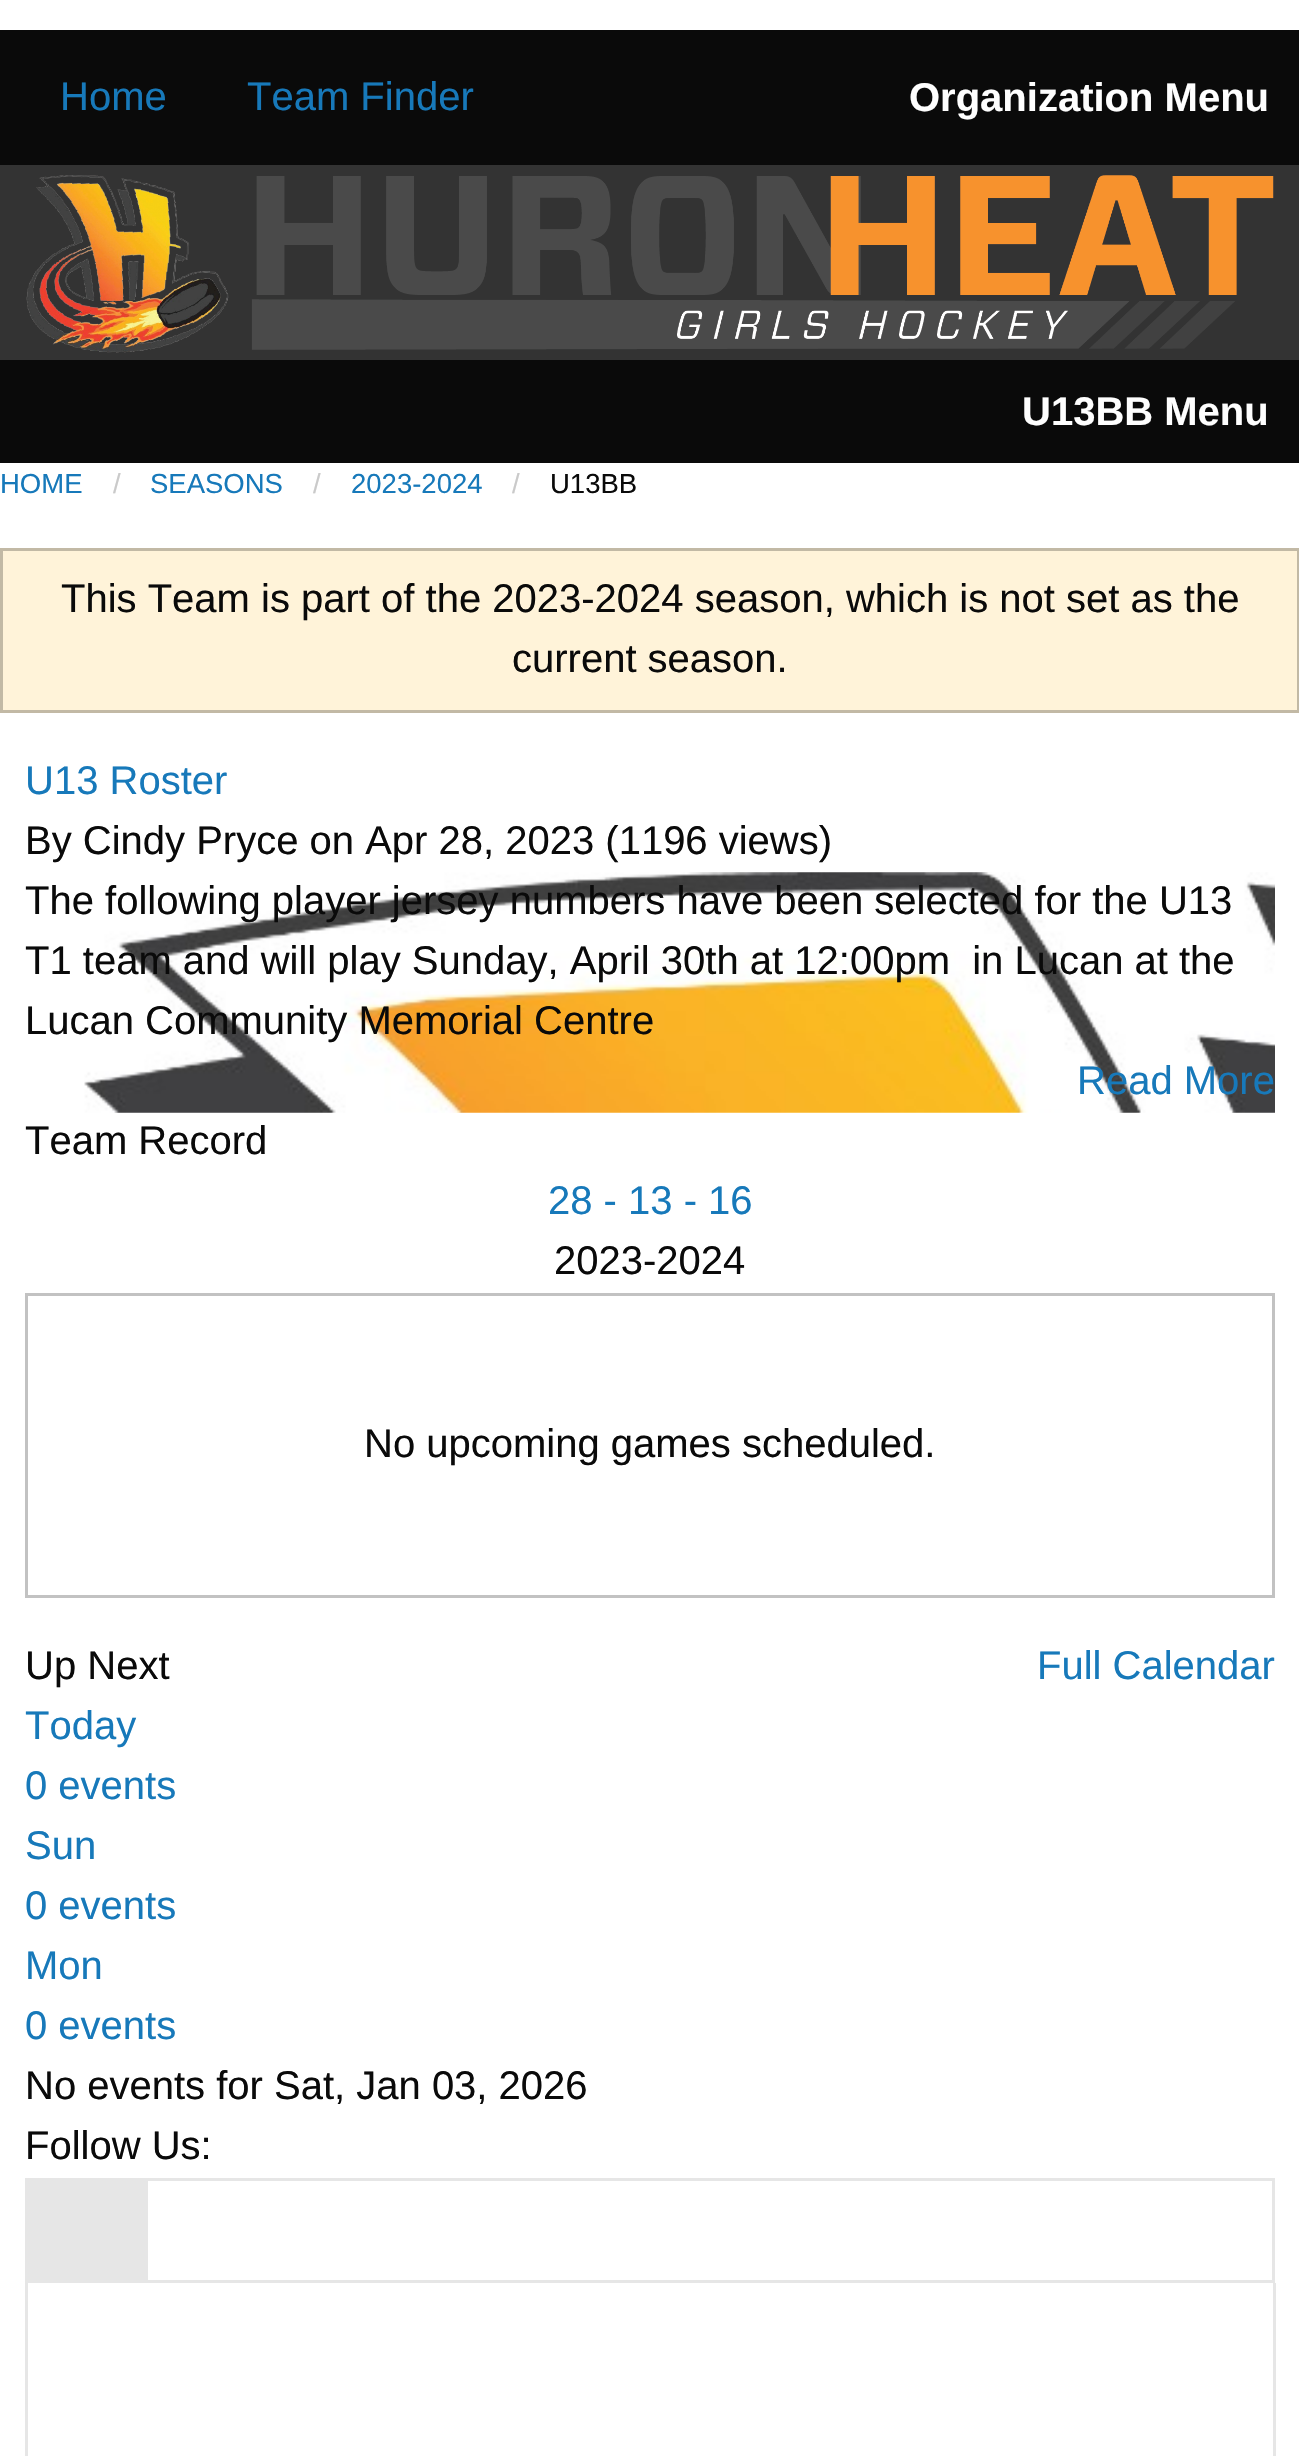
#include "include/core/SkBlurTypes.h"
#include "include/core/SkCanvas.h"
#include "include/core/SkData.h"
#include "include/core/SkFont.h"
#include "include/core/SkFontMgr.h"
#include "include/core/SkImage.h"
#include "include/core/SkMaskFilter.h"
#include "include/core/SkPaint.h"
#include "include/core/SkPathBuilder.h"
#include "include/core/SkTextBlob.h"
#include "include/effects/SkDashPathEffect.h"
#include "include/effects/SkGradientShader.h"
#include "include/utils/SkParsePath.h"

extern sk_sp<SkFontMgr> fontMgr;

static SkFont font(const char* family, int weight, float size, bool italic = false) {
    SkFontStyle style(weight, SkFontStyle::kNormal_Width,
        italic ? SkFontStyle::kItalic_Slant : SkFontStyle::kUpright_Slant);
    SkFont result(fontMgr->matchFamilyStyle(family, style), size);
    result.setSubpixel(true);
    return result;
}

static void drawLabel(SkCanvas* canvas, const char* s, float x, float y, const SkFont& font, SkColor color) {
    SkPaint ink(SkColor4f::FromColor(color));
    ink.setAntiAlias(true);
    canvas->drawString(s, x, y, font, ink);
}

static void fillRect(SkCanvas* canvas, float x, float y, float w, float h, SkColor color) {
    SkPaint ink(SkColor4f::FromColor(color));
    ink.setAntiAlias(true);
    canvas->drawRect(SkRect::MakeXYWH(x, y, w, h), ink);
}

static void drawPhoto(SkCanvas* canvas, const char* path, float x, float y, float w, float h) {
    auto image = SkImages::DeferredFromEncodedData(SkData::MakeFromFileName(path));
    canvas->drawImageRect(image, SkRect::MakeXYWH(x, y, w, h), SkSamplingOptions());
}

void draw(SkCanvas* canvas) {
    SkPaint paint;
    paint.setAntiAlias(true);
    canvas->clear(0xFFFFFFFF);
    fillRect(canvas, 0, 30, 1299, 135, 0xFF0A0A0A);
    SkFont font1 = font("Liberation Sans", 400, 40);
    drawLabel(canvas, "Home", 60, 110, font1, 0xFF1779BA);
    drawLabel(canvas, "Team Finder", 247, 110, font1, 0xFF1779BA);
    SkFont font2 = font("Liberation Sans", 700, 40);
    drawLabel(canvas, "Organization Menu", 909, 111, font2, 0xFFFEFEFE);
    drawPhoto(canvas, "assets/img1.png", 0, 165, 1299, 195);
    fillRect(canvas, 0, 360, 1299, 103, 0xFF0A0A0A);
    drawLabel(canvas, "U13BB Menu", 1022, 425, font2, 0xFFFEFEFE);
    SkFont font3 = font("Liberation Sans", 400, 27.5f);
    drawLabel(canvas, "HOME", 0, 493, font3, 0xFF1779BA);
    drawLabel(canvas, "/", 113, 493, font3, 0xFFCACACA);
    drawLabel(canvas, "SEASONS", 150, 493, font3, 0xFF1779BA);
    drawLabel(canvas, "/", 313, 493, font3, 0xFFCACACA);
    drawLabel(canvas, "2023-2024", 351, 493, font3, 0xFF1779BA);
    drawLabel(canvas, "/", 512, 493, font3, 0xFFCACACA);
    drawLabel(canvas, "U13BB", 550, 493, font3, 0xFF0A0A0A);
    paint.setColor(0xFFFFF3D9);
    canvas->drawRect(SkRect::MakeXYWH(1.5f, 549.5f, 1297, 162), paint);
    paint.setStroke(true);
    paint.setStrokeWidth(3);
    paint.setColor(0xFFC2B9A5);
    canvas->drawRect(SkRect::MakeXYWH(1.5f, 549.5f, 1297, 162), paint);
    drawLabel(canvas, "This Team is part of the 2023-2024 season, which is not set as the", 61, 612, font1, 0xFF0A0A0A);
    drawLabel(canvas, "current season.", 512, 672, font1, 0xFF0A0A0A);
    drawLabel(canvas, "U13 Roster", 25, 794, font1, 0xFF1779BA);
    drawLabel(canvas, "By Cindy Pryce on Apr 28, 2023 (1196 views)", 25, 854, font1, 0xFF0A0A0A);
    drawPhoto(canvas, "assets/img2.png", 84, 872, 1191, 241);
    drawPhoto(canvas, "assets/img3.png", 114, 872, 1161, 241);
    drawLabel(canvas, "The following player jersey numbers have been selected for the U13", 25, 914, font1, 0xFF0A0A0A);
    drawLabel(canvas, "T1 team and will play Sunday, April 30th at 12:00pm  in Lucan at the", 25, 974, font1, 0xFF0A0A0A);
    drawLabel(canvas, "Lucan Community Memorial Centre", 25, 1034, font1, 0xFF0A0A0A);
    drawLabel(canvas, "Read More", 1077, 1094, font1, 0xFF1779BA);
    drawLabel(canvas, "Team Record", 25, 1154, font1, 0xFF0A0A0A);
    drawLabel(canvas, "28 - 13 - 16", 548, 1214, font1, 0xFF1779BA);
    drawLabel(canvas, "2023-2024", 554, 1274, font1, 0xFF0A0A0A);
    paint.setColor(0xFFC2C2C2);
    canvas->drawRect(SkRect::MakeXYWH(26.5f, 1294.5f, 1247, 302), paint);
    drawLabel(canvas, "No upcoming games scheduled.", 364, 1457, font1, 0xFF0A0A0A);
    drawLabel(canvas, "Up Next", 25, 1679, font1, 0xFF0A0A0A);
    drawLabel(canvas, "Full Calendar", 1037, 1679, font1, 0xFF1779BA);
    drawLabel(canvas, "Today", 25, 1739, font1, 0xFF1779BA);
    drawLabel(canvas, "0 events", 25, 1799, font1, 0xFF1779BA);
    drawLabel(canvas, "Sun", 25, 1859, font1, 0xFF1779BA);
    drawLabel(canvas, "0 events", 25, 1919, font1, 0xFF1779BA);
    drawLabel(canvas, "Mon", 25, 1979, font1, 0xFF1779BA);
    drawLabel(canvas, "0 events", 25, 2039, font1, 0xFF1779BA);
    drawLabel(canvas, "No events for Sat, Jan 03, 2026", 25, 2099, font1, 0xFF0A0A0A);
    drawLabel(canvas, "Follow Us:", 25, 2159, font1, 0xFF0A0A0A);
    paint.setColor(0xFFE6E6E6);
    canvas->drawRect(SkRect::MakeXYWH(26.5f, 2179.5f, 1247, 102), paint);
    fillRect(canvas, 28, 2181, 120, 99, 0xFFE6E6E6);
    fillRect(canvas, 1273, 2283, 3, 173, 0xFFE6E6E6);
    fillRect(canvas, 25, 2283, 3, 173, 0xFFE6E6E6);
}
